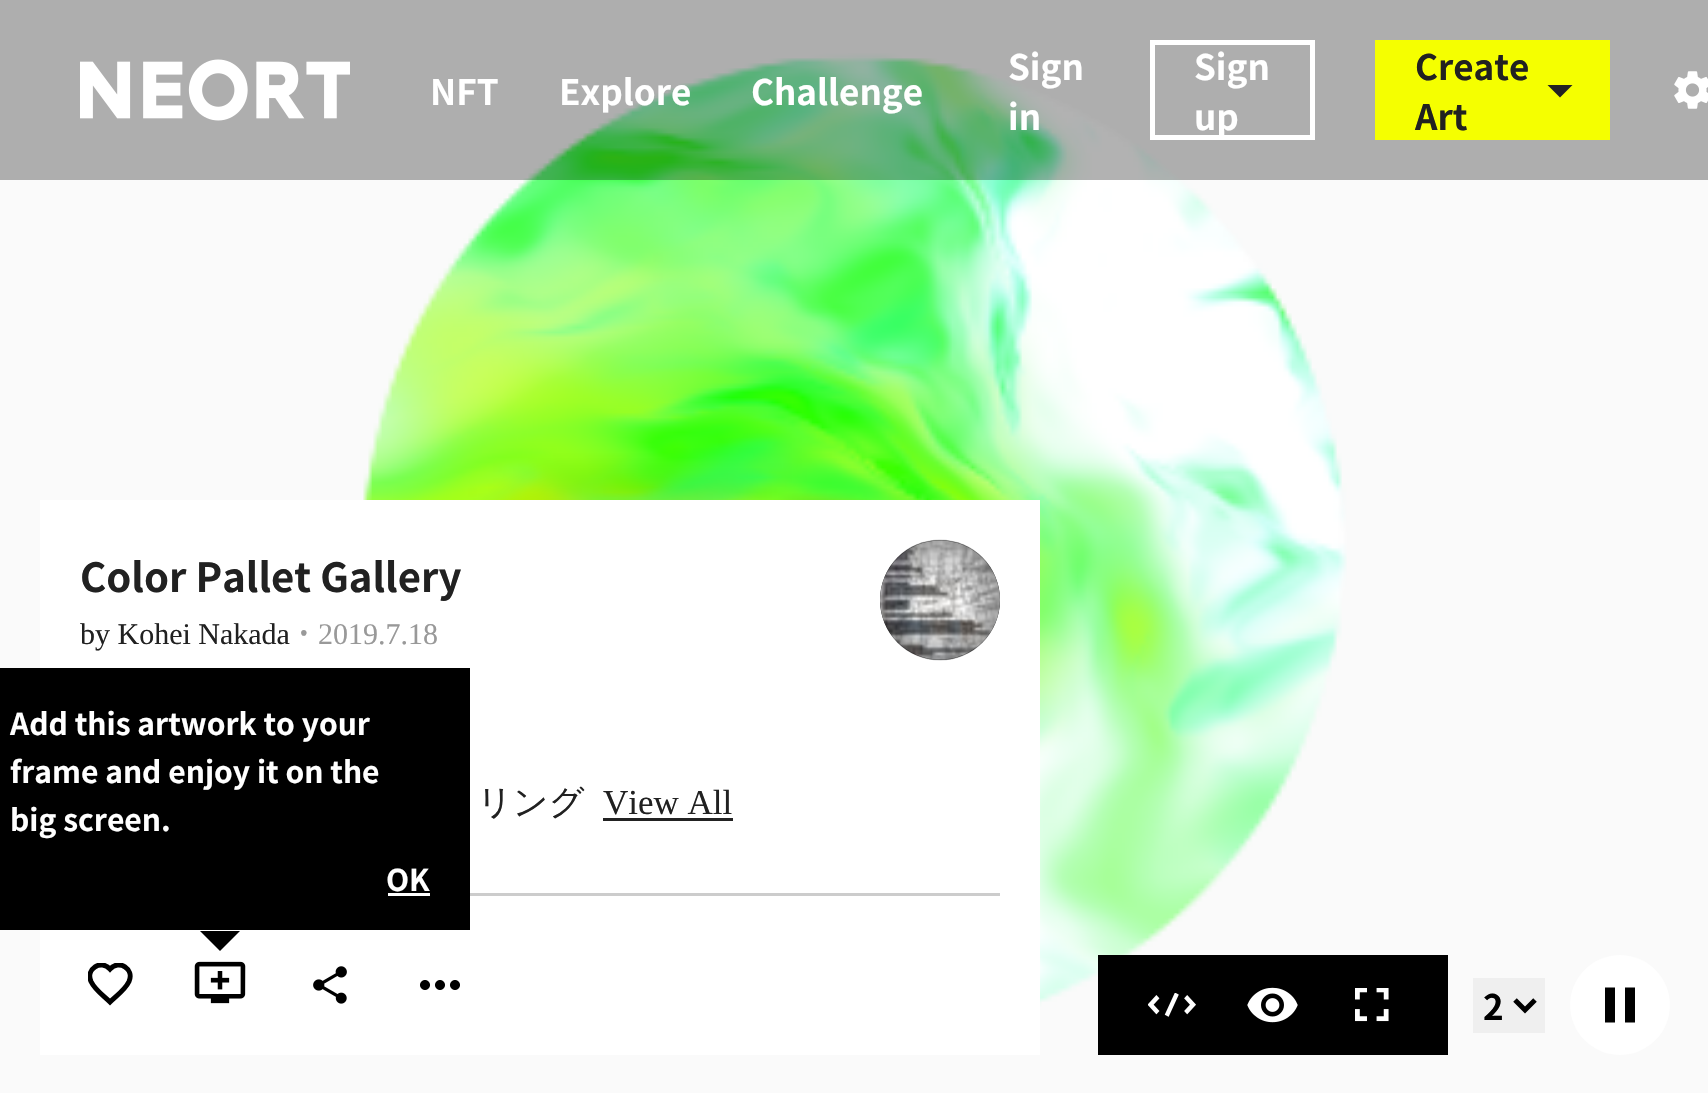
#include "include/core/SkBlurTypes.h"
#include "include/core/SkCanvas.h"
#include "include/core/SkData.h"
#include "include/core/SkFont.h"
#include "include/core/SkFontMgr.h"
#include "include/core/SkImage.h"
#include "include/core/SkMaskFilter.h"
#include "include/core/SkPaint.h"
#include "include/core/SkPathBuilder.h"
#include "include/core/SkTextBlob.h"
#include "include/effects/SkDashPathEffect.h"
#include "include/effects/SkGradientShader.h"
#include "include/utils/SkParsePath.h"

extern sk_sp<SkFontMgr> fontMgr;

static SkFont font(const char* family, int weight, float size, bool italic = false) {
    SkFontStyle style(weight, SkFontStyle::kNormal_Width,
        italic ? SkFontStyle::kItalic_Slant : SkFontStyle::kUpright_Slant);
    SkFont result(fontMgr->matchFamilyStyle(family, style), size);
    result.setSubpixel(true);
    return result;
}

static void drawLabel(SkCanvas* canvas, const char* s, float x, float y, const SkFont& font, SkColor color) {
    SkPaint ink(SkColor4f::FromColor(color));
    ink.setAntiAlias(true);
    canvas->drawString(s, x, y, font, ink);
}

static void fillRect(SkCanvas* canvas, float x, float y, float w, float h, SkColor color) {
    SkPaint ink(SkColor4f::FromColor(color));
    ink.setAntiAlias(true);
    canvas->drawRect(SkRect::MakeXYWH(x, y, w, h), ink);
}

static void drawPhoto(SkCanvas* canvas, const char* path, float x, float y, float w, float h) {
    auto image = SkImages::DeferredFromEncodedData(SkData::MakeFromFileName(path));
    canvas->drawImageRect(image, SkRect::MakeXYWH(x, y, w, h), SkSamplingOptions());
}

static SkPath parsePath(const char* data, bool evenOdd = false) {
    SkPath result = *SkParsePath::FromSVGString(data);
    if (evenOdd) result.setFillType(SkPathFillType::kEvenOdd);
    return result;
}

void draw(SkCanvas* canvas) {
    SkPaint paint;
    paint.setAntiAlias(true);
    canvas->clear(0xFFFFFFFF);
    drawPhoto(canvas, "assets/img3.png", 0, 0, 1708, 1093);
    fillRect(canvas, 0, 0, 1708, 180, 0x4D000000);
    drawPhoto(canvas, "assets/img1.png", 80, 59, 270, 62);
    SkFont font1 = font("Noto Sans JP", 700, 35);
    drawLabel(canvas, "NFT", 430, 105, font1, 0xFFFFFFFF);
    drawLabel(canvas, "Explore", 559, 105, font1, 0xFFFFFFFF);
    drawLabel(canvas, "Challenge", 751, 105, font1, 0xFFFFFFFF);
    drawLabel(canvas, "Sign", 1008, 80, font1, 0xFFFFFFFF);
    drawLabel(canvas, "in", 1008, 130, font1, 0xFFFFFFFF);
    paint.setStroke(true);
    paint.setStrokeWidth(5);
    paint.setColor(0xFFFFFFFF);
    canvas->drawRect(SkRect::MakeXYWH(1152.5f, 42.5f, 160, 95), paint);
    drawLabel(canvas, "Sign", 1194, 80, font1, 0xFFFFFFFF);
    drawLabel(canvas, "up", 1194, 130, font1, 0xFFFFFFFF);
    fillRect(canvas, 1375, 40, 235, 100, 0xFFF5FF00);
    drawLabel(canvas, "Create", 1415, 80, font1, 0xFF212121);
    drawLabel(canvas, "Art", 1415, 130, font1, 0xFF212121);
    paint.setStroke(false);
    paint.setColor(0xFF222222);
    canvas->drawPath(parsePath("M1547.5 85H1572.5L1560 97.5Z"), paint);
    drawPhoto(canvas, "assets/img2.png", 1674, 71, 34, 38);
    fillRect(canvas, 40, 500, 1000, 555, 0xFFFFFFFF);
    SkFont font2 = font("Noto Sans JP", 700, 40);
    drawLabel(canvas, "Color Pallet Gallery", 80, 592, font2, 0xFF212121);
    SkFont font3 = font("Liberation Serif", 400, 30);
    drawLabel(canvas, "by Kohei Nakada", 80, 644, font3, 0xFF212121);
    SkFont font4 = font("Noto Sans JP", 700, 30);
    drawLabel(canvas, "·", 295, 644, font4, 0xFF999999);
    drawLabel(canvas, "2019.7.18", 318, 644, font3, 0xFF999999);
    paint.setColor(0xFF000000);
    canvas->drawCircle(940, 600, 60, paint);
    drawPhoto(canvas, "assets/img4.png", 880, 539, 120, 122);
    fillRect(canvas, 470, 893, 530, 3, 0xFFCCCCCC);
    fillRect(canvas, 0, 668, 470, 262, 0xFF000000);
    drawLabel(canvas, "Add this artwork to your", 10, 735, font4, 0xFFFFFFFF);
    drawLabel(canvas, "frame and enjoy it on the", 10, 783, font4, 0xFFFFFFFF);
    drawLabel(canvas, "big screen.", 10, 831, font4, 0xFFFFFFFF);
    drawLabel(canvas, "OK", 386, 891, font4, 0xFFFFFFFF);
    fillRect(canvas, 388, 893, 42, 3, 0xFFFFFFFF);
    canvas->drawPath(parsePath("M200 931H240L220 951Z"), paint);
    drawPhoto(canvas, "assets/img5.png", 194, 961, 52, 43);
    canvas->save();
    canvas->clipRect(SkRect::MakeXYWH(88, 963, 45, 45));
    paint.setStroke(true);
    canvas->drawPath(parsePath("M110 1002C103.5 995.5 95 990 91 981.5C85.5 969 101 959 110 969C119 959 134.5 969 129 981.5C125 990 116.5 995.5 110 1002Z"), paint);
    canvas->restore();
    drawPhoto(canvas, "assets/img6.png", 313, 966, 34, 38);
    drawPhoto(canvas, "assets/img7.png", 420, 980, 40, 10);
    SkFont font5 = font("WenQuanYi Zen Hei", 500, 35);
    drawLabel(canvas, "リング", 477, 814, font5, 0xFF212121);
    SkFont font6 = font("Liberation Serif", 400, 35);
    drawLabel(canvas, "View All", 603, 814, font6, 0xFF212121);
    fillRect(canvas, 603, 818, 130, 3, 0xFF222222);
    fillRect(canvas, 1098, 955, 350, 100, 0xFF000000);
    drawPhoto(canvas, "assets/img8.png", 1148, 993, 48, 24);
    drawPhoto(canvas, "assets/img9.png", 1247, 987, 51, 36);
    drawPhoto(canvas, "assets/img10.png", 1355, 988, 34, 34);
    fillRect(canvas, 1473, 978, 72, 55, 0xFFEFEFEF);
    canvas->drawPath(parsePath("M1515 1000L1525 1010L1535 1000"), paint);
    drawLabel(canvas, "2", 1483, 1020, font1, 0xFF000000);
    paint.setStroke(false);
    paint.setColor(0xFFFFFFFF);
    canvas->drawCircle(1620, 1005, 50, paint);
    paint.setColor(0xFF000000);
    canvas->drawPath(parsePath("M1605 1022.5H1615V987.5H1605ZM1625 987.5V1022.5H1635V987.5Z"), paint);
}
